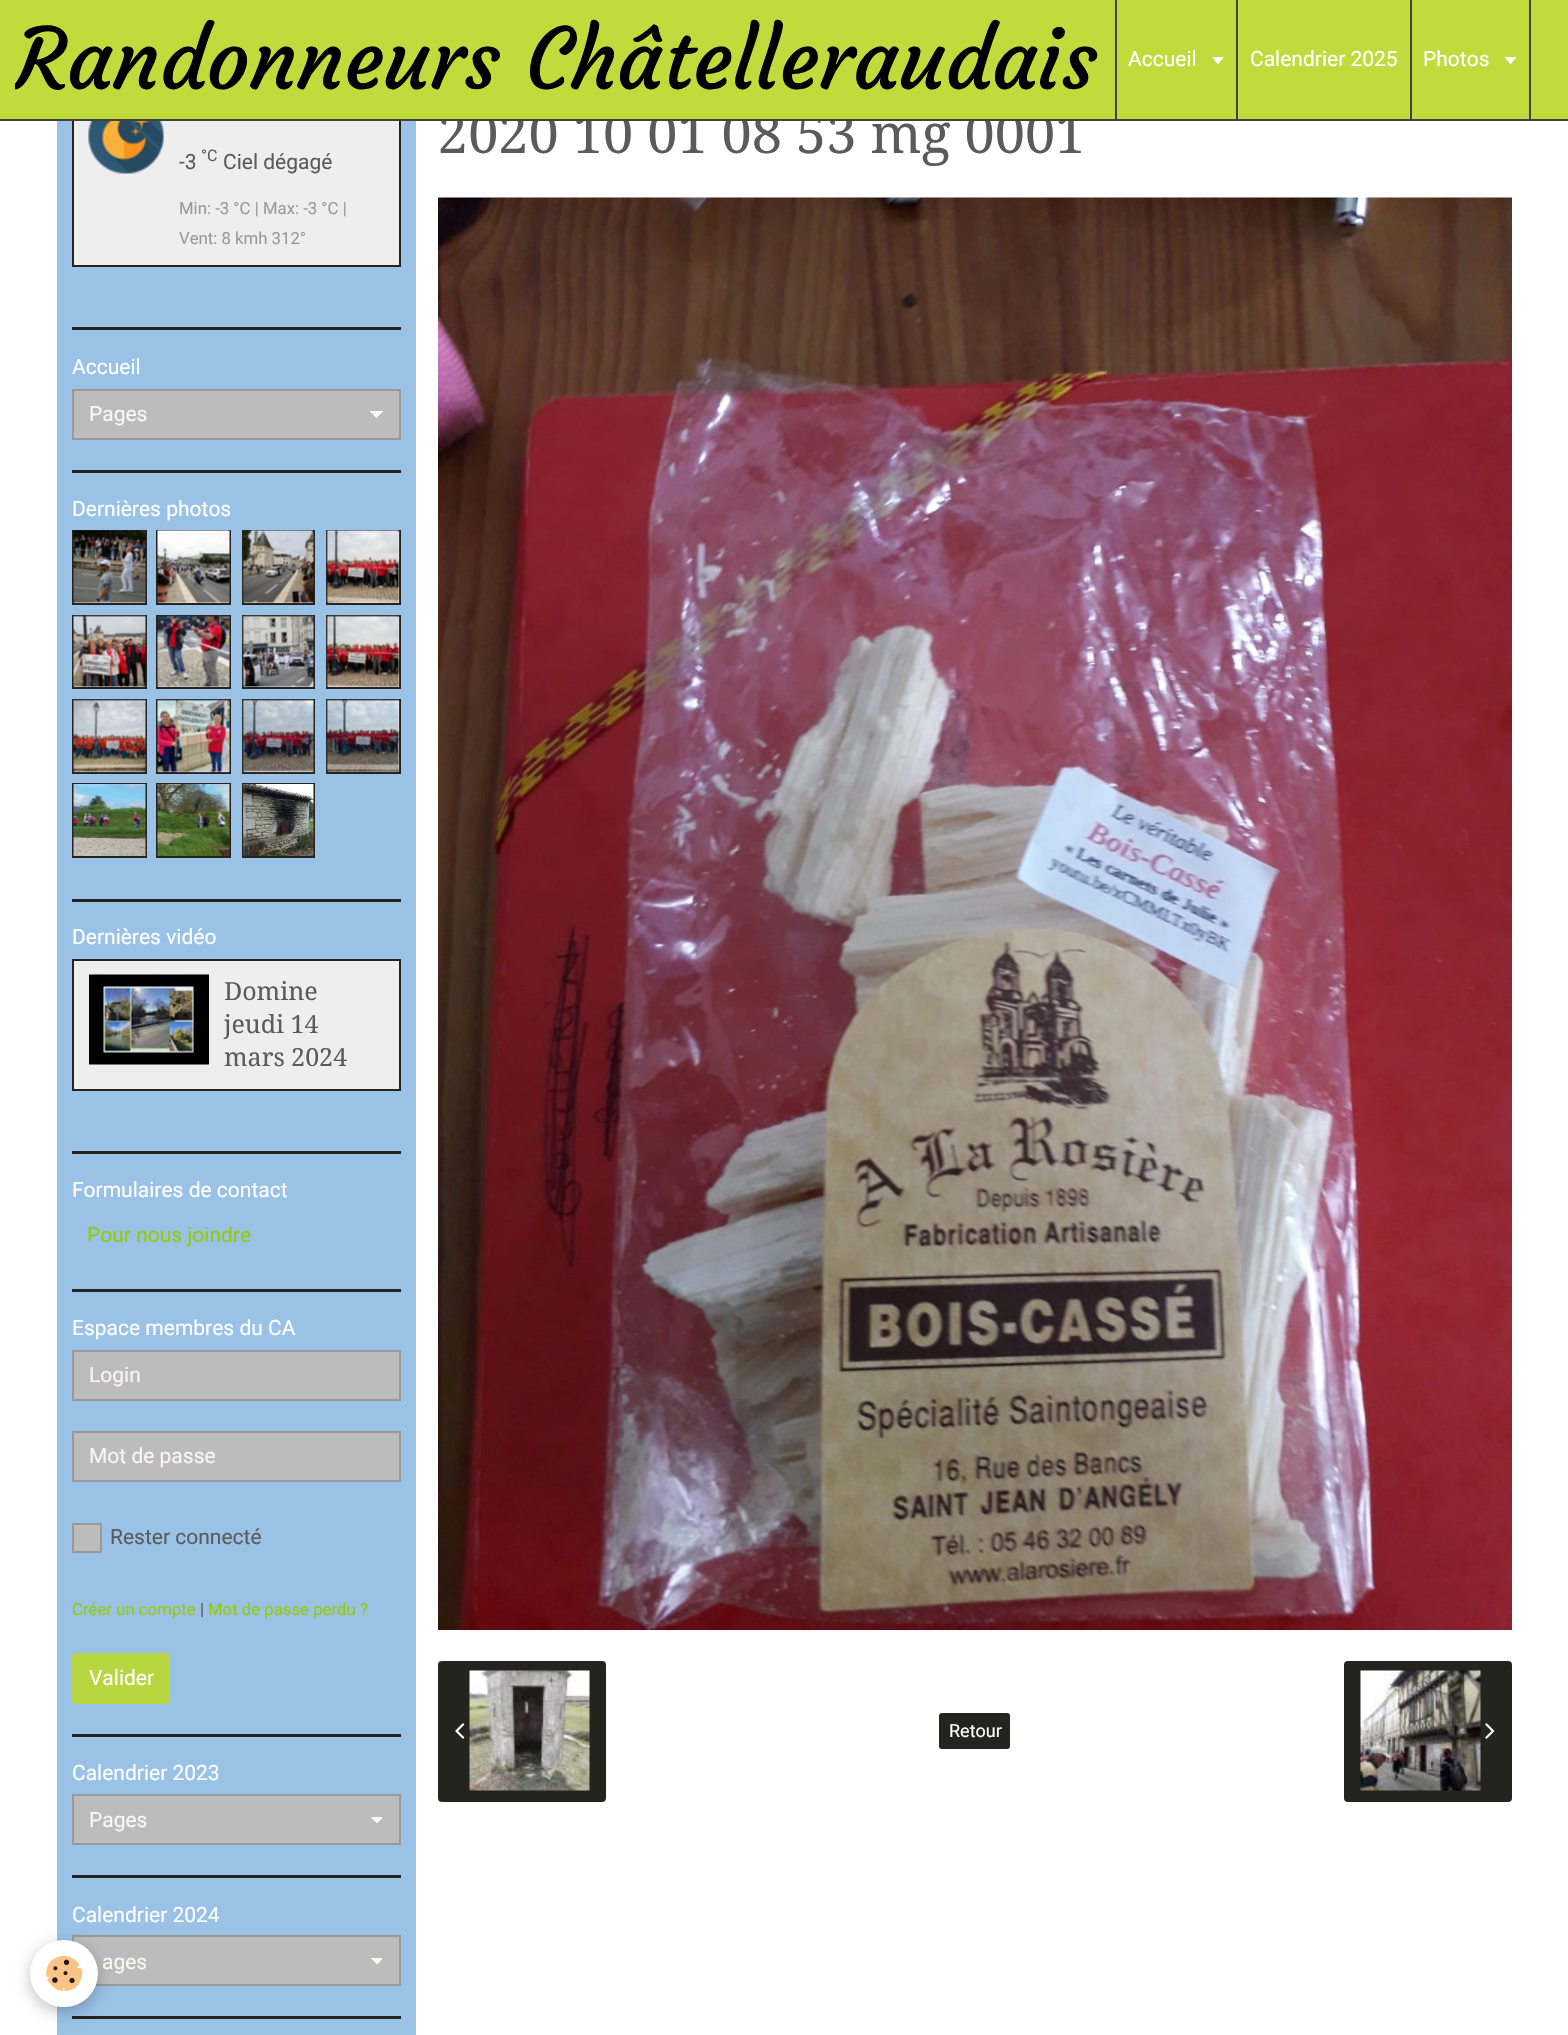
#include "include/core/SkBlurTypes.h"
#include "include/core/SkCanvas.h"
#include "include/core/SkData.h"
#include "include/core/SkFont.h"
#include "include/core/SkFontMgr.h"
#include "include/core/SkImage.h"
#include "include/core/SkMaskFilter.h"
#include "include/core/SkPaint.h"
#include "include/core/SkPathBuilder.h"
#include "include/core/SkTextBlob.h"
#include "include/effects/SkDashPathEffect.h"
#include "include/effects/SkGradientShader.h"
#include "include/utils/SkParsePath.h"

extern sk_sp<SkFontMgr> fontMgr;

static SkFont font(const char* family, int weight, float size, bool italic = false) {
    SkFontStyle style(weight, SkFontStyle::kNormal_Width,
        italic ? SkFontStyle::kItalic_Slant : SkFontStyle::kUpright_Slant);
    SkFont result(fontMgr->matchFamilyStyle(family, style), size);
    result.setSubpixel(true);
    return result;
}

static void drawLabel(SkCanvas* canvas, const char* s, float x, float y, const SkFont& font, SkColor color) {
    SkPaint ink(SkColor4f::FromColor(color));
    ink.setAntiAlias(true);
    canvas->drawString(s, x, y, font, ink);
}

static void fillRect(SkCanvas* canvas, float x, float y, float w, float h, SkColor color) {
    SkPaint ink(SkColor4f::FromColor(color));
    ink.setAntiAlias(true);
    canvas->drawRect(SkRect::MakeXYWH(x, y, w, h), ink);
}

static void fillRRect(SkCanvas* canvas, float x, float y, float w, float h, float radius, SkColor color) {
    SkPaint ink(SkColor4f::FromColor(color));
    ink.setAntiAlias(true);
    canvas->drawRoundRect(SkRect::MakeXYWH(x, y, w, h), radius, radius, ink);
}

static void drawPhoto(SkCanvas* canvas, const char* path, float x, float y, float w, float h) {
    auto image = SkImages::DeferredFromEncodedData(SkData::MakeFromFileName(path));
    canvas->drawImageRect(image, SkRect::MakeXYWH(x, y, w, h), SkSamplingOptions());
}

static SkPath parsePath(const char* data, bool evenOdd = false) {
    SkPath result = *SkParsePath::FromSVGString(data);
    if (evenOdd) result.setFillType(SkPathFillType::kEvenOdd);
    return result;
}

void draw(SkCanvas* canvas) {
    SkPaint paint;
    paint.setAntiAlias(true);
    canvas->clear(0xFFFFFFFF);
    fillRect(canvas, 57, 121, 359, 1914, 0xFF9AC2E7);
    fillRect(canvas, 74, 121, 325, 144, 0xFFEEEEEE);
    paint.setStroke(true);
    paint.setStrokeWidth(2);
    paint.setColor(0xFF25231F);
    canvas->drawRect(SkRect::MakeXYWH(73, 84, 327, 182), paint);
    SkFont font1 = font("Droid Serif", 400, 54);
    drawLabel(canvas, "2020 10 01 08 53 mg 0001", 438, 153, font1, 0xFF5B5B5B);
    fillRect(canvas, 0, 0, 1568, 119, 0xFFC1DB3C);
    fillRect(canvas, 0, 119, 1568, 2, 0xFF41413D);
    canvas->save();
    canvas->clipRect(SkRect::MakeXYWH(15, 0, 1083, 119));
    SkFont font2 = font("Courgette", 400, 84);
    drawLabel(canvas, "Randonneurs Châtelleraudais", 15, 89, font2, 0xFF000000);
    canvas->restore();
    fillRect(canvas, 1236, 0, 2, 119, 0xFF41413D);
    fillRect(canvas, 1115, 0, 2, 119, 0xFF41413D);
    SkFont font3 = font("Roboto", 400, 21);
    drawLabel(canvas, "Accueil", 1128, 66, font3, 0xFFFFFFFF);
    paint.setStroke(false);
    paint.setColor(0xFFFFFFFF);
    canvas->drawPath(parsePath("M1212 57H1224L1218 64.5Z"), paint);
    fillRect(canvas, 1410, 0, 2, 119, 0xFF41413D);
    drawLabel(canvas, "Calendrier 2025", 1250, 66, font3, 0xFFFFFFFF);
    fillRect(canvas, 1529, 0, 2, 119, 0xFF41413D);
    drawLabel(canvas, "Photos", 1423, 66, font3, 0xFFFFFFFF);
    canvas->drawPath(parsePath("M1504.5 57H1516.5L1510.5 64.5Z"), paint);
    fillRect(canvas, 72, 2016, 329, 3, 0xFF25231F);
    fillRect(canvas, 74, 1937, 325, 47, 0xFFBCBCBC);
    {
        const SkColor colors[] = {0xFFF8FAF4, 0xFFBCBCBC};
        const float stops[] = {0.5f, 0.5f};
        const SkPoint ends[] = {{377, 1957}, {384, 1964}};
        paint.setShader(SkGradientShader::MakeLinear(ends, colors, stops, 2, SkTileMode::kClamp));
        paint.setAlpha(255);
    }
    canvas->drawRect(SkRect::MakeXYWH(377, 1958, 7, 6), paint);
    {
        const SkColor colors[] = {0xFFBCBCBC, 0xFFF8FAF4};
        const float stops[] = {0.5f, 0.5f};
        const SkPoint ends[] = {{369, 1964}, {377, 1957}};
        paint.setShader(SkGradientShader::MakeLinear(ends, colors, stops, 2, SkTileMode::kClamp));
        paint.setAlpha(255);
    }
    canvas->drawRect(SkRect::MakeXYWH(369, 1958, 8, 6), paint);
    paint.setStroke(true);
    paint.setShader(nullptr);
    paint.setColor(0xFF999999);
    canvas->drawRect(SkRect::MakeXYWH(73, 1936, 327, 49), paint);
    paint.setStroke(false);
    paint.setColor(0x3D000000);
    paint.setMaskFilter(SkMaskFilter::MakeBlur(kNormal_SkBlurStyle, 7.5f));
    canvas->drawRoundRect(SkRect::MakeXYWH(30, 1944, 68, 68), 34, 34, paint);
    paint.setMaskFilter(nullptr);
    fillRRect(canvas, 30, 1940, 68, 67, 33.5f, 0xFFFFFFFF);
    drawPhoto(canvas, "assets/img1.png", 46, 1955, 37, 36);
    fillRect(canvas, 72, 327, 329, 3, 0xFF25231F);
    drawPhoto(canvas, "assets/img2.png", 88, 121, 76, 53);
    drawLabel(canvas, "-3", 179, 169, font3, 0xFF5B5B5B);
    SkFont font4 = font("Roboto", 400, 16);
    drawLabel(canvas, "°C", 201, 161, font4, 0xFF5B5B5B);
    drawLabel(canvas, "Ciel dégagé", 223, 169, font3, 0xFF5B5B5B);
    SkFont font5 = font("Roboto", 400, 16.75f);
    drawLabel(canvas, "Min: -3 °C | Max: -3 °C |", 179, 214, font5, 0xFF999999);
    drawLabel(canvas, "Vent: 8 kmh 312°", 179, 244, font5, 0xFF999999);
    fillRect(canvas, 72, 470, 329, 3, 0xFF25231F);
    drawLabel(canvas, "Accueil", 72, 374, font3, 0xFFFFFFFF);
    fillRect(canvas, 74, 391, 325, 47, 0xFFBCBCBC);
    {
        const SkColor colors[] = {0xFFF8FAF4, 0xFFBCBCBC};
        const float stops[] = {0.5f, 0.5f};
        const SkPoint ends[] = {{377, 410}, {384, 418}};
        paint.setShader(SkGradientShader::MakeLinear(ends, colors, stops, 2, SkTileMode::kClamp));
        paint.setAlpha(255);
    }
    canvas->drawRect(SkRect::MakeXYWH(377, 411, 6, 8), paint);
    {
        const SkColor colors[] = {0xFFBCBCBC, 0xFFF8FAF4};
        const float stops[] = {0.5f, 0.5f};
        const SkPoint ends[] = {{369, 418}, {377, 410}};
        paint.setShader(SkGradientShader::MakeLinear(ends, colors, stops, 2, SkTileMode::kClamp));
        paint.setAlpha(255);
    }
    canvas->drawRect(SkRect::MakeXYWH(369, 411, 8, 7), paint);
    paint.setStroke(true);
    paint.setShader(nullptr);
    paint.setColor(0xFF999999);
    canvas->drawRect(SkRect::MakeXYWH(73, 390, 327, 49), paint);
    drawLabel(canvas, "Pages", 89, 421, font3, 0xFFF8FAF4);
    fillRect(canvas, 72, 899, 329, 3, 0xFF25231F);
    drawLabel(canvas, "Dernières photos", 72, 516, font3, 0xFFFFFFFF);
    fillRect(canvas, 74, 602, 71, 1, 0xFFEEEEEE);
    paint.setColor(0xFF25231F);
    canvas->drawRect(SkRect::MakeXYWH(73, 531, 73, 73), paint);
    drawPhoto(canvas, "assets/img3.png", 73, 530, 73, 73);
    fillRect(canvas, 158, 602, 71, 1, 0xFFEEEEEE);
    canvas->drawRect(SkRect::MakeXYWH(157, 531, 73, 73), paint);
    drawPhoto(canvas, "assets/img4.png", 157, 530, 73, 73);
    fillRect(canvas, 244, 602, 69, 1, 0xFFEEEEEE);
    canvas->drawRect(SkRect::MakeXYWH(243, 531, 71, 73), paint);
    drawPhoto(canvas, "assets/img5.png", 242, 530, 72, 73);
    paint.setStroke(false);
    paint.setColor(0xFFEEEEEE);
    canvas->drawRect(SkRect::MakeXYWH(327, 531, 73, 73), paint);
    paint.setStroke(true);
    paint.setColor(0xFF25231F);
    canvas->drawRect(SkRect::MakeXYWH(327, 531, 73, 73), paint);
    drawPhoto(canvas, "assets/img6.png", 326, 530, 74, 73);
    fillRect(canvas, 74, 686, 71, 1, 0xFFEEEEEE);
    canvas->drawRect(SkRect::MakeXYWH(73, 616, 73, 72), paint);
    drawPhoto(canvas, "assets/img7.png", 73, 615, 73, 72);
    fillRect(canvas, 158, 686, 71, 1, 0xFFEEEEEE);
    canvas->drawRect(SkRect::MakeXYWH(157, 616, 73, 72), paint);
    drawPhoto(canvas, "assets/img8.png", 157, 615, 73, 72);
    fillRect(canvas, 244, 686, 69, 1, 0xFFEEEEEE);
    canvas->drawRect(SkRect::MakeXYWH(243, 616, 71, 72), paint);
    drawPhoto(canvas, "assets/img9.png", 242, 615, 72, 72);
    paint.setStroke(false);
    paint.setColor(0xFFEEEEEE);
    canvas->drawRect(SkRect::MakeXYWH(327, 616, 73, 72), paint);
    paint.setStroke(true);
    paint.setColor(0xFF25231F);
    canvas->drawRect(SkRect::MakeXYWH(327, 616, 73, 72), paint);
    drawPhoto(canvas, "assets/img10.png", 326, 615, 74, 72);
    fillRect(canvas, 74, 771, 71, 1, 0xFFEEEEEE);
    canvas->drawRect(SkRect::MakeXYWH(73, 700, 73, 73), paint);
    drawPhoto(canvas, "assets/img11.png", 73, 699, 73, 74);
    fillRect(canvas, 158, 771, 71, 1, 0xFFEEEEEE);
    canvas->drawRect(SkRect::MakeXYWH(157, 700, 73, 73), paint);
    drawPhoto(canvas, "assets/img12.png", 157, 699, 73, 74);
    fillRect(canvas, 244, 771, 69, 1, 0xFFEEEEEE);
    canvas->drawRect(SkRect::MakeXYWH(243, 700, 71, 73), paint);
    drawPhoto(canvas, "assets/img13.png", 242, 699, 72, 74);
    paint.setStroke(false);
    paint.setColor(0xFFEEEEEE);
    canvas->drawRect(SkRect::MakeXYWH(327, 700, 73, 73), paint);
    paint.setStroke(true);
    paint.setColor(0xFF25231F);
    canvas->drawRect(SkRect::MakeXYWH(327, 700, 73, 73), paint);
    drawPhoto(canvas, "assets/img14.png", 326, 699, 74, 74);
    canvas->drawRect(SkRect::MakeXYWH(73, 784, 73, 73), paint);
    drawPhoto(canvas, "assets/img15.png", 73, 784, 73, 72);
    canvas->drawRect(SkRect::MakeXYWH(157, 784, 73, 73), paint);
    drawPhoto(canvas, "assets/img16.png", 157, 784, 73, 72);
    canvas->drawRect(SkRect::MakeXYWH(243, 784, 71, 73), paint);
    drawPhoto(canvas, "assets/img17.png", 243, 784, 71, 72);
    fillRect(canvas, 72, 1151, 329, 3, 0xFF25231F);
    drawLabel(canvas, "Dernières vidéo", 72, 944, font3, 0xFFFFFFFF);
    paint.setStroke(false);
    paint.setColor(0xFFEEEEEE);
    canvas->drawRect(SkRect::MakeXYWH(73, 960, 327, 130), paint);
    paint.setStroke(true);
    paint.setColor(0xFF25231F);
    canvas->drawRect(SkRect::MakeXYWH(73, 960, 327, 130), paint);
    drawPhoto(canvas, "assets/img18.png", 89, 974, 120, 91);
    SkFont font6 = font("Droid Serif", 400, 25);
    drawLabel(canvas, "Domine", 224, 1000, font6, 0xFF5B5B5B);
    drawLabel(canvas, "jeudi 14", 224, 1033, font6, 0xFF5B5B5B);
    drawLabel(canvas, "mars 2024", 224, 1066, font6, 0xFF5B5B5B);
    fillRect(canvas, 72, 1289, 329, 3, 0xFF25231F);
    drawLabel(canvas, "Formulaires de contact", 72, 1197, font3, 0xFFFFFFFF);
    drawLabel(canvas, "Pour nous joindre", 87, 1242, font3, 0xFF8FCE00);
    fillRect(canvas, 72, 1734, 329, 3, 0xFF25231F);
    drawLabel(canvas, "Espace membres du CA", 72, 1335, font3, 0xFFFFFFFF);
    paint.setStroke(false);
    paint.setColor(0xFFBCBCBC);
    canvas->drawRect(SkRect::MakeXYWH(73, 1351, 327, 49), paint);
    paint.setStroke(true);
    paint.setColor(0xFF999999);
    canvas->drawRect(SkRect::MakeXYWH(73, 1351, 327, 49), paint);
    drawLabel(canvas, "Login", 89, 1382, font3, 0xFFFFF4F4);
    paint.setStroke(false);
    paint.setColor(0xFFBCBCBC);
    canvas->drawRect(SkRect::MakeXYWH(73, 1432, 327, 49), paint);
    paint.setStroke(true);
    paint.setColor(0xFF999999);
    canvas->drawRect(SkRect::MakeXYWH(73, 1432, 327, 49), paint);
    drawLabel(canvas, "Mot de passe", 89, 1463, font3, 0xFFFFF4F4);
    paint.setStroke(false);
    paint.setColor(0xFFBCBCBC);
    canvas->drawRect(SkRect::MakeXYWH(73, 1524, 28, 28), paint);
    paint.setStroke(true);
    paint.setColor(0xFF999999);
    canvas->drawRect(SkRect::MakeXYWH(73, 1524, 28, 28), paint);
    drawLabel(canvas, "Rester connecté", 110, 1544, font3, 0xFF5B5B5B);
    drawLabel(canvas, "Créer un compte", 72, 1615, font5, 0xFF8FCE00);
    drawLabel(canvas, "|", 200, 1615, font5, 0xFF5B5B5B);
    drawLabel(canvas, "Mot de passe perdu ?", 208, 1615, font5, 0xFF8FCE00);
    fillRRect(canvas, 72, 1653, 98, 51, 4, 0xFFB8D63F);
    drawLabel(canvas, "Valider", 89, 1685, font3, 0xFFFFFFFF);
    fillRect(canvas, 72, 1875, 329, 3, 0xFF25231F);
    drawLabel(canvas, "Calendrier 2023", 72, 1780, font3, 0xFFFFFFFF);
    fillRect(canvas, 74, 1796, 325, 47, 0xFFBCBCBC);
    paint.setStroke(false);
    {
        const SkColor colors[] = {0xFFF8FAF4, 0xFFBCBCBC};
        const float stops[] = {0.5f, 0.5f};
        const SkPoint ends[] = {{377, 1816}, {384, 1823}};
        paint.setShader(SkGradientShader::MakeLinear(ends, colors, stops, 2, SkTileMode::kClamp));
        paint.setAlpha(255);
    }
    canvas->drawRect(SkRect::MakeXYWH(377, 1817, 7, 6), paint);
    {
        const SkColor colors[] = {0xFFBCBCBC, 0xFFF8FAF4};
        const float stops[] = {0.5f, 0.5f};
        const SkPoint ends[] = {{369, 1823}, {377, 1816}};
        paint.setShader(SkGradientShader::MakeLinear(ends, colors, stops, 2, SkTileMode::kClamp));
        paint.setAlpha(255);
    }
    canvas->drawRect(SkRect::MakeXYWH(369, 1817, 8, 6), paint);
    paint.setStroke(true);
    paint.setShader(nullptr);
    paint.setColor(0xFF999999);
    canvas->drawRect(SkRect::MakeXYWH(73, 1795, 327, 49), paint);
    drawLabel(canvas, "Pages", 89, 1827, font3, 0xFFF8FAF4);
    drawLabel(canvas, "Calendrier 2024", 72, 1922, font3, 0xFFFFFFFF);
    drawLabel(canvas, "ages", 102, 1969, font3, 0xFFF8FAF4);
    drawPhoto(canvas, "assets/img19.png", 438, 197, 1074, 1433);
    paint.setStroke(false);
    paint.setColor(0xFF24241F);
    canvas->drawRoundRect(SkRect::MakeXYWH(439, 1662, 166, 139), 3, 3, paint);
    paint.setStroke(true);
    canvas->drawRoundRect(SkRect::MakeXYWH(439, 1662, 166, 139), 3, 3, paint);
    drawPhoto(canvas, "assets/img20.png", 455, 1723, 10, 16);
    drawPhoto(canvas, "assets/img21.png", 469, 1670, 121, 121);
    paint.setStroke(false);
    canvas->drawRoundRect(SkRect::MakeXYWH(940, 1714, 69, 34), 2, 2, paint);
    paint.setStroke(true);
    canvas->drawRoundRect(SkRect::MakeXYWH(940, 1714, 69, 34), 2, 2, paint);
    SkFont font7 = font("Roboto", 400, 18);
    drawLabel(canvas, "Retour", 949, 1737, font7, 0xFFFFFFFF);
    paint.setStroke(false);
    canvas->drawRoundRect(SkRect::MakeXYWH(1345, 1662, 166, 139), 3, 3, paint);
    paint.setStroke(true);
    canvas->drawRoundRect(SkRect::MakeXYWH(1345, 1662, 166, 139), 3, 3, paint);
    drawPhoto(canvas, "assets/img22.png", 1360, 1670, 121, 121);
    drawPhoto(canvas, "assets/img23.png", 1485, 1723, 10, 16);
}
